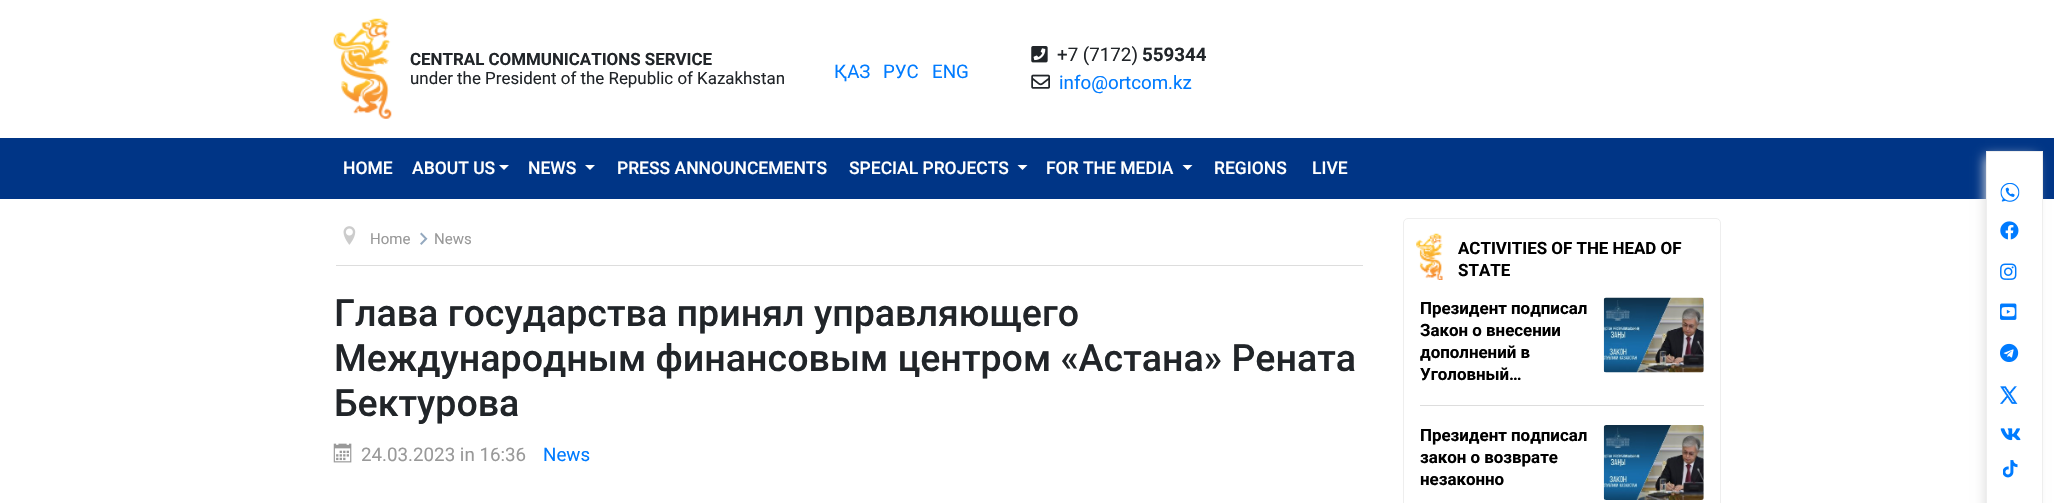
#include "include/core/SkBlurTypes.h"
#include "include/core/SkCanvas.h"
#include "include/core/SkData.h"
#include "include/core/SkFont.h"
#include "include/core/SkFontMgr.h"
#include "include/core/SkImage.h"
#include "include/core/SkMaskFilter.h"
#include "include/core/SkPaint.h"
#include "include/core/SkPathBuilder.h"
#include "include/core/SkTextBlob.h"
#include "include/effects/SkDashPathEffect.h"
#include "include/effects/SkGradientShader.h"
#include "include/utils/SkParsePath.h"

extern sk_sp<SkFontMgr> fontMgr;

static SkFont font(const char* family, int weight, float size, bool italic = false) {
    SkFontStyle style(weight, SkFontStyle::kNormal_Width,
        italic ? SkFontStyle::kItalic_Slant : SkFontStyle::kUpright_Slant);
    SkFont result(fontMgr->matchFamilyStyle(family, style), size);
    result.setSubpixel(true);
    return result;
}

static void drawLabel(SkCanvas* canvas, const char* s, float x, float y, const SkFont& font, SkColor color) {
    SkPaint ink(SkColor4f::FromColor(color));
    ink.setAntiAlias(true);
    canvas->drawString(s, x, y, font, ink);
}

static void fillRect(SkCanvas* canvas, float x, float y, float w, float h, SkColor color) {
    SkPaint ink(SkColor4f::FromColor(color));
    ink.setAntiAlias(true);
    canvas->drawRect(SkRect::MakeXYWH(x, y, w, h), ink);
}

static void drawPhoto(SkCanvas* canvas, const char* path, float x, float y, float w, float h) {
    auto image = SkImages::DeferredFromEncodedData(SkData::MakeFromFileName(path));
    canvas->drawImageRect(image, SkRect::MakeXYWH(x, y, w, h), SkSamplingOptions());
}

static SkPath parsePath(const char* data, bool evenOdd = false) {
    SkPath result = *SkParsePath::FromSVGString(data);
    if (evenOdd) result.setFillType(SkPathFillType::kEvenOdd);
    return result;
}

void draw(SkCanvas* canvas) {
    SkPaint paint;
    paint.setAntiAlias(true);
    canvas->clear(0xFFFFFFFF);
    drawPhoto(canvas, "assets/img1.png", 333, 18, 59, 101);
    SkFont font1 = font("Roboto", 700, 16.9f);
    drawLabel(canvas, "CENTRAL COMMUNICATIONS SERVICE", 410, 65, font1, 0xFF212529);
    SkFont font2 = font("Roboto", 400, 16.9f);
    drawLabel(canvas, "under the President of the Republic of Kazakhstan", 410, 84, font2, 0xFF212529);
    SkFont font3 = font("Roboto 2", 400, 18.75f);
    drawLabel(canvas, "ҚАЗ", 834, 78, font3, 0xFF007BFF);
    drawLabel(canvas, "РУС", 883, 78, font3, 0xFF007BFF);
    SkFont font4 = font("Roboto", 400, 18.75f);
    drawLabel(canvas, "ENG", 932, 78, font4, 0xFF007BFF);
    drawPhoto(canvas, "assets/img2.png", 1031, 46, 17, 17);
    drawLabel(canvas, "+7 (7172)", 1057, 61, font4, 0xFF212529);
    SkFont font5 = font("Roboto", 700, 18.75f);
    drawLabel(canvas, "559344", 1142, 61, font5, 0xFF212529);
    drawPhoto(canvas, "assets/img3.png", 1031, 74, 19, 15);
    drawLabel(canvas, "info@ortcom.kz", 1059, 89, font4, 0xFF007BFF);
    fillRect(canvas, 0, 138, 2054, 61, 0xFF003586);
    paint.setColor(0xFFDDDDDD);
    paint.setMaskFilter(SkMaskFilter::MakeBlur(kNormal_SkBlurStyle, 5.5f));
    canvas->drawRect(SkRect::MakeXYWH(1985, 156, 51, 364), paint);
    paint.setMaskFilter(nullptr);
    paint.setColor(0xFFFFFFFF);
    canvas->drawRect(SkRect::MakeXYWH(1986.5f, 151.5f, 56, 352), paint);
    paint.setStroke(true);
    paint.setStrokeWidth(1);
    paint.setColor(0xFFEEEEEE);
    canvas->drawRect(SkRect::MakeXYWH(1986.5f, 151.5f, 56, 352), paint);
    drawPhoto(canvas, "assets/img4.png", 2000, 183, 20, 19);
    drawPhoto(canvas, "assets/img5.png", 2000, 221, 19, 19);
    drawPhoto(canvas, "assets/img6.png", 2000, 263, 17, 17);
    drawPhoto(canvas, "assets/img7.png", 2000, 303, 17, 17);
    drawPhoto(canvas, "assets/img8.png", 2000, 343, 19, 19);
    drawPhoto(canvas, "assets/img9.png", 2000, 386, 18, 18);
    drawPhoto(canvas, "assets/img10.png", 2000, 428, 21, 13);
    drawPhoto(canvas, "assets/img11.png", 2003, 460, 15, 18);
    SkFont font6 = font("Roboto", 500, 17.5f);
    drawLabel(canvas, "HOME", 343, 174, font6, 0xFFFFFFFF);
    drawLabel(canvas, "ABOUT US", 412, 174, font6, 0xFFFFFFFF);
    paint.setStroke(false);
    paint.setColor(0xFFFFFFFF);
    canvas->drawPath(parsePath("M499 165H509L504 170Z"), paint);
    drawLabel(canvas, "NEWS", 528, 174, font6, 0xFFFFFFFF);
    canvas->drawPath(parsePath("M585 165H595L590 170Z"), paint);
    drawLabel(canvas, "PRESS ANNOUNCEMENTS", 617, 174, font6, 0xFFFFFFFF);
    drawLabel(canvas, "SPECIAL PROJECTS", 849, 174, font6, 0xFFFFFFFF);
    canvas->drawPath(parsePath("M1017.5 165H1027.5L1022.5 170Z"), paint);
    drawLabel(canvas, "FOR THE MEDIA", 1046, 174, font6, 0xFFFFFFFF);
    canvas->drawPath(parsePath("M1182.5 165H1192.5L1187.5 170Z"), paint);
    drawLabel(canvas, "REGIONS", 1214, 174, font6, 0xFFFFFFFF);
    drawLabel(canvas, "LIVE", 1312, 174, font6, 0xFFFFFFFF);
    fillRect(canvas, 336, 265, 1027, 1, 0xFFDDDDDD);
    drawPhoto(canvas, "assets/img12.png", 343, 226, 13, 19);
    SkFont font7 = font("Roboto", 400, 15);
    drawLabel(canvas, "Home", 370, 244, font7, 0xFF999999);
    drawPhoto(canvas, "assets/img13.png", 420, 232, 8, 13);
    drawLabel(canvas, "News", 434, 244, font7, 0xFF999999);
    SkFont font8 = font("Roboto", 500, 37.5f);
    drawLabel(canvas, "Глава государства принял управляющего", 334, 326, font8, 0xFF212529);
    drawLabel(canvas, "Международным финансовым центром «Астана» Рената", 334, 371, font8, 0xFF212529);
    drawLabel(canvas, "Бектурова", 334, 416, font8, 0xFF212529);
    drawPhoto(canvas, "assets/img14.png", 333, 443, 19, 20);
    drawLabel(canvas, "24.03.2023 in 16:36", 361, 461, font4, 0xFF999999);
    drawLabel(canvas, "News", 543, 461, font4, 0xFF007BFF);
    paint.setStroke(true);
    paint.setColor(0xFFEEEEEE);
    canvas->drawRoundRect(SkRect::MakeXYWH(1403.5f, 218.5f, 317, 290), 4.5f, 4.5f, paint);
    drawPhoto(canvas, "assets/img15.png", 1416, 233, 27, 47);
    drawLabel(canvas, "ACTIVITIES OF THE HEAD OF", 1458, 254, font1, 0xFF000000);
    drawLabel(canvas, "STATE", 1458, 276, font1, 0xFF000000);
    fillRect(canvas, 1420, 405, 284, 1, 0xFFDDDDDD);
    drawLabel(canvas, "Президент подписал", 1420, 314, font1, 0xFF000000);
    drawLabel(canvas, "Закон о внесении", 1420, 336, font1, 0xFF000000);
    drawLabel(canvas, "дополнений в", 1420, 358, font1, 0xFF000000);
    drawLabel(canvas, "Уголовный…", 1420, 380, font1, 0xFF000000);
    drawPhoto(canvas, "assets/img16.png", 1603, 297, 101, 76);
    drawLabel(canvas, "Президент подписал", 1420, 441, font1, 0xFF000000);
    drawLabel(canvas, "закон о возврате", 1420, 463, font1, 0xFF000000);
    drawLabel(canvas, "незаконно", 1420, 485, font1, 0xFF000000);
    drawPhoto(canvas, "assets/img17.png", 1603, 425, 101, 75);
}
